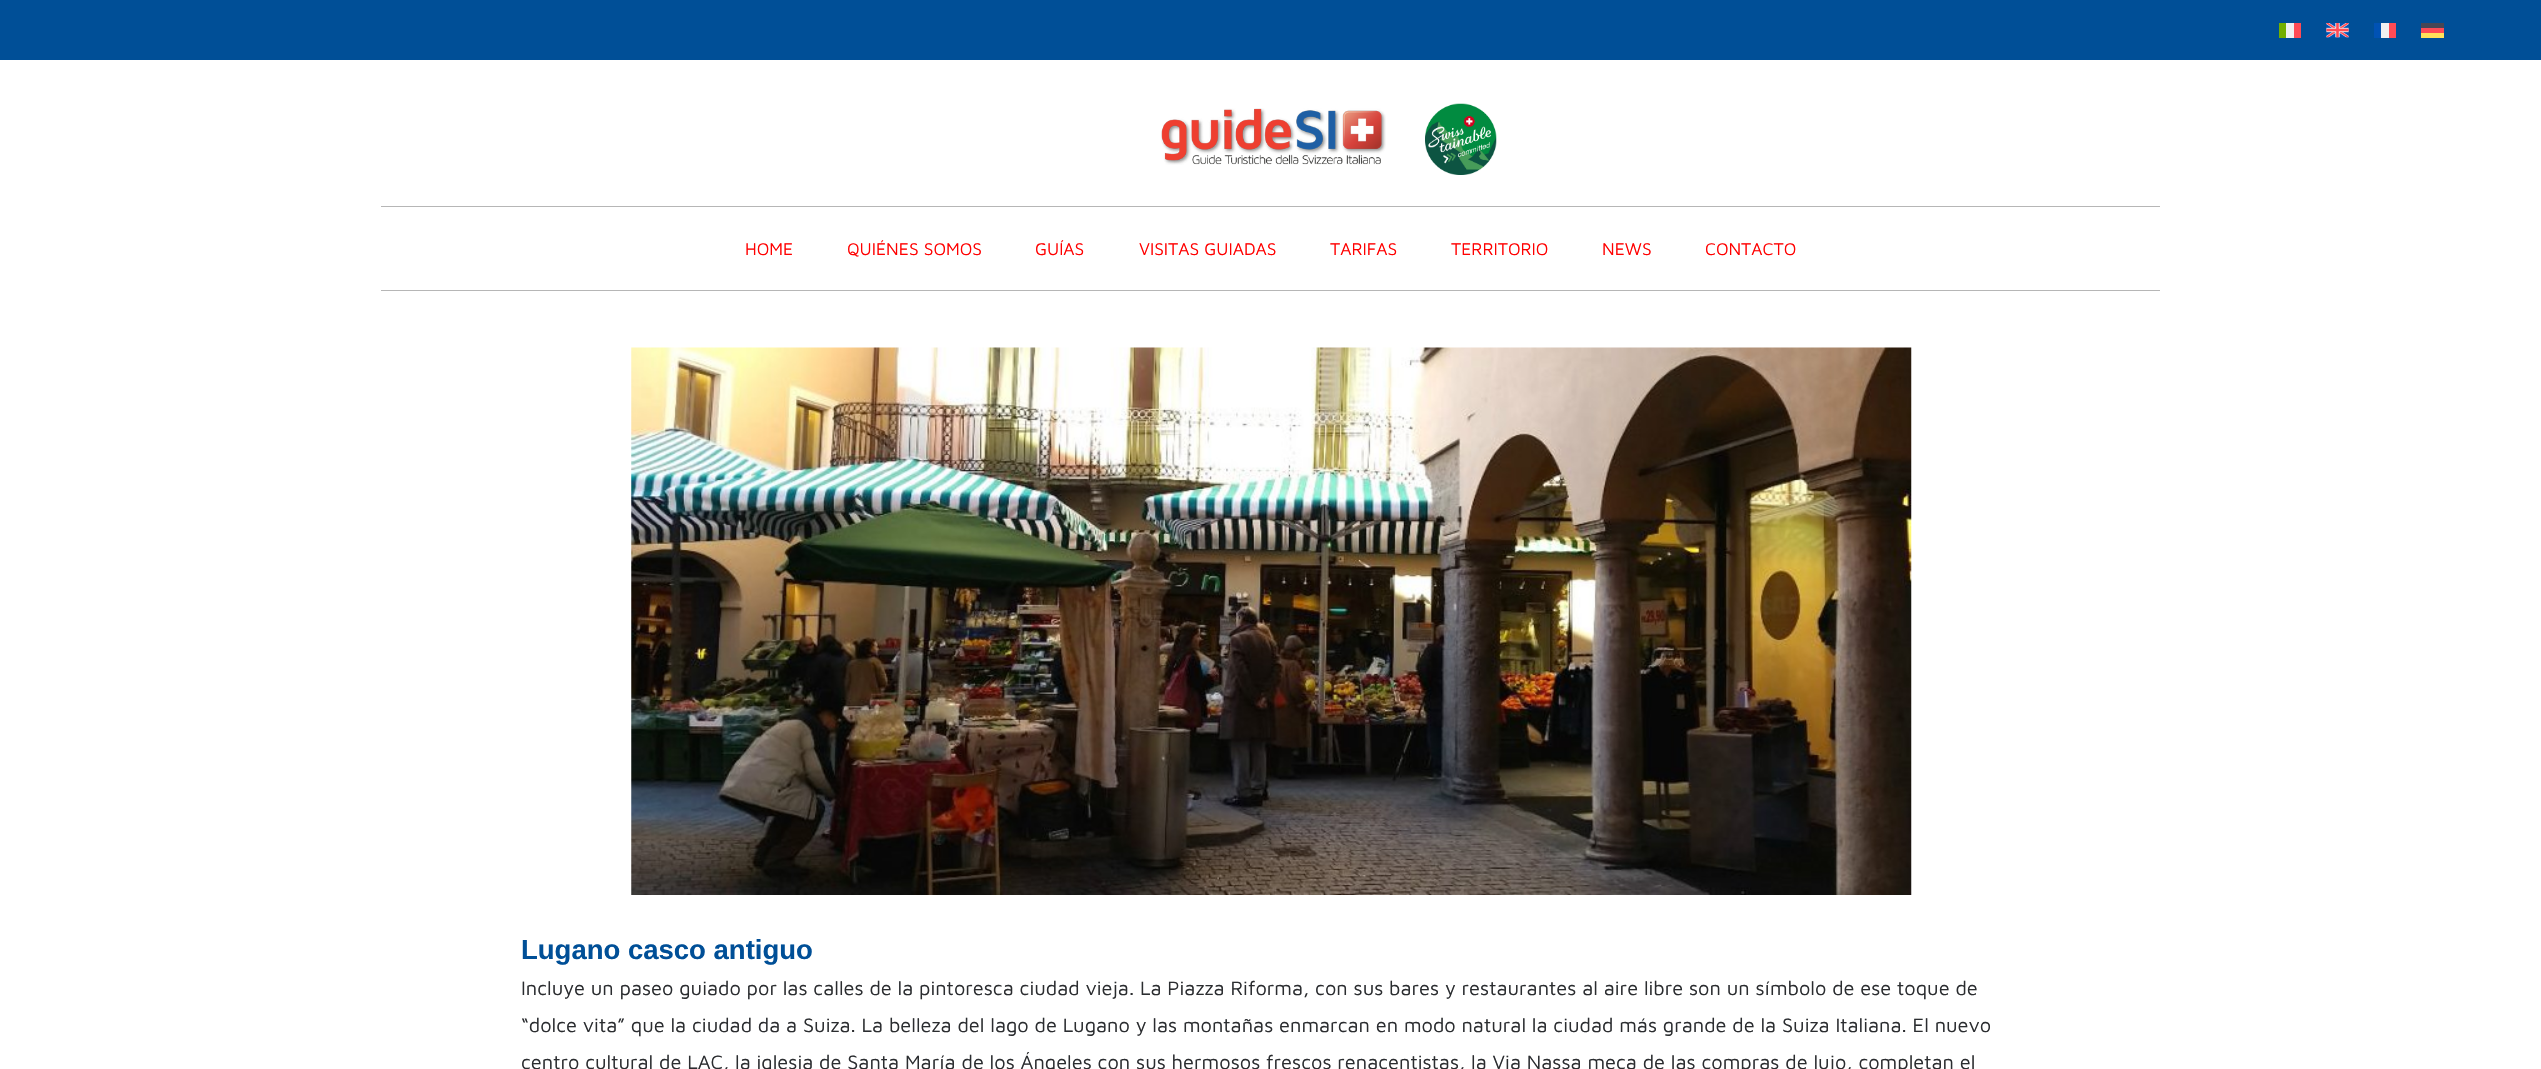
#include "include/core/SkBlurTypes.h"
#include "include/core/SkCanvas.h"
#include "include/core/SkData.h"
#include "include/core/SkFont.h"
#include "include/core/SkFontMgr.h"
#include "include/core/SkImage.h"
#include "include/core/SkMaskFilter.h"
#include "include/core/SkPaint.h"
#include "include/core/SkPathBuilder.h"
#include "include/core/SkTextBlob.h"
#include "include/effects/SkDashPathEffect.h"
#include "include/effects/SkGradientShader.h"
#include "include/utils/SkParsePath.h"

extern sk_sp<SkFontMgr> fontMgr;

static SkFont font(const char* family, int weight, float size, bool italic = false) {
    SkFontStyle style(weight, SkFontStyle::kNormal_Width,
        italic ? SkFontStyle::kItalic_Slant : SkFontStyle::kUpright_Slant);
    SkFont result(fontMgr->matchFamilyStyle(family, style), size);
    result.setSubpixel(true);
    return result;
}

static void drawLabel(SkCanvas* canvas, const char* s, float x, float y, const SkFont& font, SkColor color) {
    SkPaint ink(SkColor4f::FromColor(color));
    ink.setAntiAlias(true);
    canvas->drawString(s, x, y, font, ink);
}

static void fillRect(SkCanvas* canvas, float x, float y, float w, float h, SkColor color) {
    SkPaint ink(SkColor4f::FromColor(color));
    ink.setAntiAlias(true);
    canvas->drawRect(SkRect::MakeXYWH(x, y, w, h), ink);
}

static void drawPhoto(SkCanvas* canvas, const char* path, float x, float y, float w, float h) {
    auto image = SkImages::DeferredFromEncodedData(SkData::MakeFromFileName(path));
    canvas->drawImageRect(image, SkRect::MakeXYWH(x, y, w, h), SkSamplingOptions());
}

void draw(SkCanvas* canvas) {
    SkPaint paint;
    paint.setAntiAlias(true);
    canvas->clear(0xFFFFFFFF);
    fillRect(canvas, 0, 0, 2541, 60, 0xFF004F97);
    fillRect(canvas, 2279, 23, 7, 15, 0xFF73AF00);
    fillRect(canvas, 2286, 23, 8, 15, 0xFFF0F0F0);
    fillRect(canvas, 2294, 23, 7, 15, 0xFFFF4B55);
    drawPhoto(canvas, "assets/img1.png", 2326, 23, 23, 15);
    fillRect(canvas, 2374, 23, 7, 15, 0xFF0052B4);
    fillRect(canvas, 2381, 23, 8, 15, 0xFFF0F0F0);
    fillRect(canvas, 2389, 23, 7, 15, 0xFFFF4B55);
    fillRect(canvas, 2421, 23, 23, 5, 0xFF464655);
    fillRect(canvas, 2421, 28, 23, 5, 0xFFFF4B55);
    fillRect(canvas, 2421, 33, 23, 5, 0xFFFFE15A);
    drawPhoto(canvas, "assets/img2.png", 1161, 108, 225, 57);
    drawPhoto(canvas, "assets/img3.png", 1425, 103, 72, 72);
    fillRect(canvas, 381, 206, 1779, 1, 0xFFB6B6B6);
    fillRect(canvas, 381, 290, 1779, 1, 0xFFB6B6B6);
    SkFont font1 = font("Maven Pro", 400, 17.5f);
    drawLabel(canvas, "HOME", 745, 255, font1, 0xFFFF0000);
    drawLabel(canvas, "QUIÉNES SOMOS", 847, 255, font1, 0xFFFF0000);
    drawLabel(canvas, "GUÍAS", 1035, 255, font1, 0xFFFF0000);
    drawLabel(canvas, "VISITAS GUIADAS", 1139, 255, font1, 0xFFFF0000);
    drawLabel(canvas, "TARIFAS", 1330, 255, font1, 0xFFFF0000);
    drawLabel(canvas, "TERRITORIO", 1451, 255, font1, 0xFFFF0000);
    drawLabel(canvas, "NEWS", 1602, 255, font1, 0xFFFF0000);
    drawLabel(canvas, "CONTACTO", 1705, 255, font1, 0xFFFF0000);
    drawPhoto(canvas, "assets/img4.png", 631, 347, 1281, 548);
    SkFont font2 = font("Liberation Sans", 700, 27.5f);
    drawLabel(canvas, "Lugano casco antiguo", 521, 959, font2, 0xFF004F97);
    SkFont font3 = font("Maven Pro", 400, 20);
    drawLabel(canvas, "Incluye un paseo guiado por las calles de la pintoresca ciudad vieja. La Piazza Riforma, con sus bares y restaurantes al aire libre son un símbolo de ese toque de", 521, 995, font3, 0xFF2B2D30);
    drawLabel(canvas, "“dolce vita” que la ciudad da a Suiza. La belleza del lago de Lugano y las montañas enmarcan en modo natural la ciudad más grande de la Suiza Italiana. El nuevo", 521, 1032, font3, 0xFF2B2D30);
    drawLabel(canvas, "centro cultural de LAC, la iglesia de Santa María de los Ángeles con sus hermosos frescos renacentistas, la Via Nassa meca de las compras de lujo, completan el", 521, 1069, font3, 0xFF2B2D30);
}
